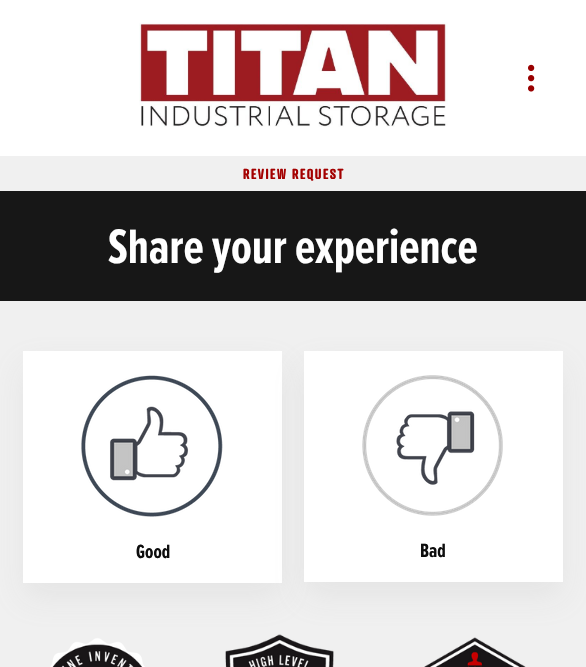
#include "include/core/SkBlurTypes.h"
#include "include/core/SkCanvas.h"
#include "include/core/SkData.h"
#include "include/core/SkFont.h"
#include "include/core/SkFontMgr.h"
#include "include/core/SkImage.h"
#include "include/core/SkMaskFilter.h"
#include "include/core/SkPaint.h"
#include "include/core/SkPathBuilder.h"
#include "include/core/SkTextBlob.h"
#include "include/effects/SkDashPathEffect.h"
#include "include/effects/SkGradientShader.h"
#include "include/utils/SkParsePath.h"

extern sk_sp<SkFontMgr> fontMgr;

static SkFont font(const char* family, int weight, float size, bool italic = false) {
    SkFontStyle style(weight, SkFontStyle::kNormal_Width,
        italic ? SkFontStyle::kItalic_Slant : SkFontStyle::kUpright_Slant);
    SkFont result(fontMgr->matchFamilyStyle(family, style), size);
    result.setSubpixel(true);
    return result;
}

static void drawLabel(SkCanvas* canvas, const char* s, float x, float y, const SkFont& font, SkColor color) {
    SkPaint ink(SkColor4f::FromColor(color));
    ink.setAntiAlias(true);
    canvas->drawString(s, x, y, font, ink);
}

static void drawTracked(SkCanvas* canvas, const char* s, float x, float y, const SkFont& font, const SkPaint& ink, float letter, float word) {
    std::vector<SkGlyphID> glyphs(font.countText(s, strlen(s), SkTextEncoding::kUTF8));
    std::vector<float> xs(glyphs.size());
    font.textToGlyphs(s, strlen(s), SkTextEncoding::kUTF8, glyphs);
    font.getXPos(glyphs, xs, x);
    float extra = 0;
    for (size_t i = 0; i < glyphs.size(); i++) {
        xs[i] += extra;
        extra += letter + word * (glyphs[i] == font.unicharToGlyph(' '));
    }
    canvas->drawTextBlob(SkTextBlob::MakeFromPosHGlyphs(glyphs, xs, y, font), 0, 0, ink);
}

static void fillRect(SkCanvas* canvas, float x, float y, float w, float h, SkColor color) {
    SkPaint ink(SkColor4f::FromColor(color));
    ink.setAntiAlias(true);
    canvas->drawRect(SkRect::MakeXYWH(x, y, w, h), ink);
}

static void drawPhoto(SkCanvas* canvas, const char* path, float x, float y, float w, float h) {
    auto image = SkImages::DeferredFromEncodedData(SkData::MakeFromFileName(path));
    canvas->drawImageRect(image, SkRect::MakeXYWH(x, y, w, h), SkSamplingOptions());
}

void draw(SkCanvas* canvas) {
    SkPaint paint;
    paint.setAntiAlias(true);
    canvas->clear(0xFFFFFFFF);
    fillRect(canvas, 0, 156, 586, 35, 0xFFF0F0F0);
    drawPhoto(canvas, "assets/img1.png", 139, 22, 309, 105);
    drawPhoto(canvas, "assets/img2.png", 528, 64, 7, 28);
    SkFont font1 = font("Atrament", 700, 14);
    paint.setColor(0xFFA30000);
    drawTracked(canvas, "REVIEW REQUEST", 243, 179, font1, paint, 1.4f, 0);
    fillRect(canvas, 0, 191, 586, 110, 0xFF171717);
    SkFont font2 = font("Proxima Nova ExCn", 700, 50);
    drawLabel(canvas, "Share your experience", 108, 263, font2, 0xFFFFFFFF);
    fillRect(canvas, 0, 301, 586, 366, 0xFFF0F0F0);
    paint.setColor(0x26A2A2A2);
    paint.setMaskFilter(SkMaskFilter::MakeBlur(kNormal_SkBlurStyle, 15));
    canvas->drawRect(SkRect::MakeXYWH(23, 366, 259, 232), paint);
    paint.setMaskFilter(nullptr);
    fillRect(canvas, 23, 351, 259, 232, 0xFFFFFFFF);
    drawPhoto(canvas, "assets/img3.png", 81, 375, 142, 142);
    SkFont font3 = font("Proxima Nova ExCn", 700, 20);
    drawLabel(canvas, "Good", 136, 558, font3, 0xFF0D0D0D);
    paint.setMaskFilter(SkMaskFilter::MakeBlur(kNormal_SkBlurStyle, 15));
    canvas->drawRect(SkRect::MakeXYWH(304, 366, 259, 231), paint);
    paint.setMaskFilter(nullptr);
    fillRect(canvas, 304, 351, 259, 231, 0xFFFFFFFF);
    drawPhoto(canvas, "assets/img4.png", 362, 375, 141, 141);
    drawLabel(canvas, "Bad", 420, 557, font3, 0xFF0D0D0D);
    drawPhoto(canvas, "assets/img5.png", 50, 634, 476, 33);
}
